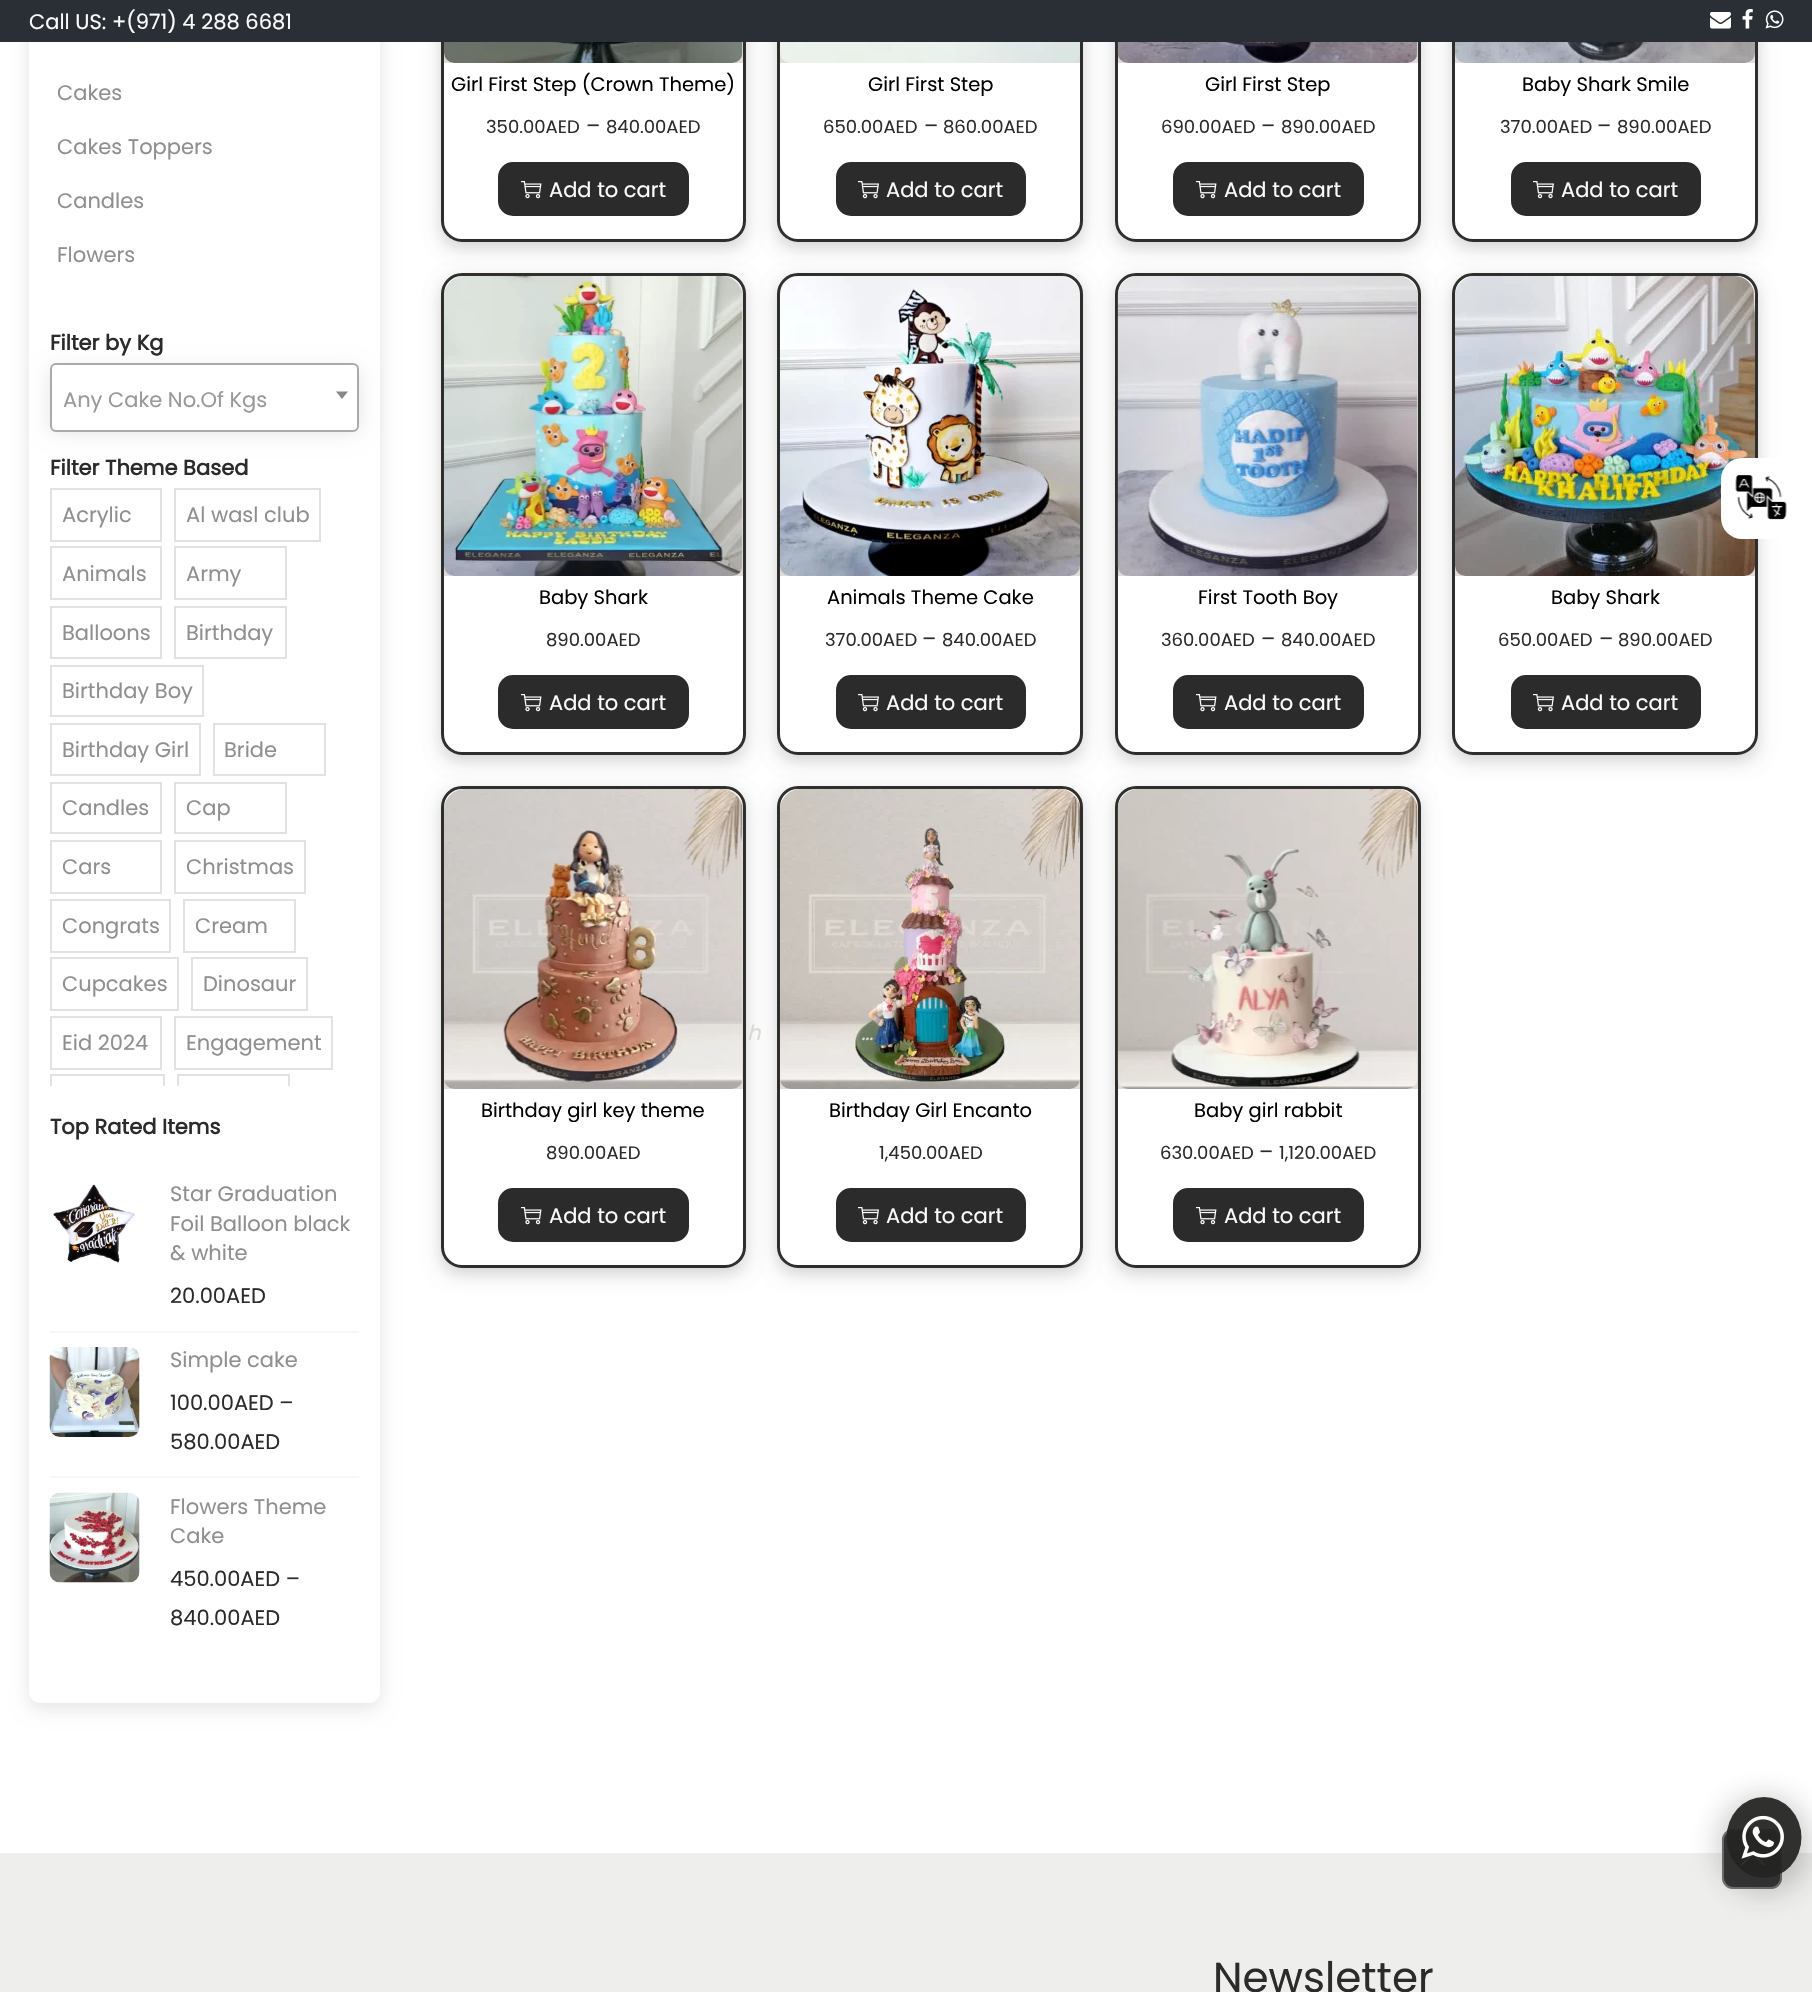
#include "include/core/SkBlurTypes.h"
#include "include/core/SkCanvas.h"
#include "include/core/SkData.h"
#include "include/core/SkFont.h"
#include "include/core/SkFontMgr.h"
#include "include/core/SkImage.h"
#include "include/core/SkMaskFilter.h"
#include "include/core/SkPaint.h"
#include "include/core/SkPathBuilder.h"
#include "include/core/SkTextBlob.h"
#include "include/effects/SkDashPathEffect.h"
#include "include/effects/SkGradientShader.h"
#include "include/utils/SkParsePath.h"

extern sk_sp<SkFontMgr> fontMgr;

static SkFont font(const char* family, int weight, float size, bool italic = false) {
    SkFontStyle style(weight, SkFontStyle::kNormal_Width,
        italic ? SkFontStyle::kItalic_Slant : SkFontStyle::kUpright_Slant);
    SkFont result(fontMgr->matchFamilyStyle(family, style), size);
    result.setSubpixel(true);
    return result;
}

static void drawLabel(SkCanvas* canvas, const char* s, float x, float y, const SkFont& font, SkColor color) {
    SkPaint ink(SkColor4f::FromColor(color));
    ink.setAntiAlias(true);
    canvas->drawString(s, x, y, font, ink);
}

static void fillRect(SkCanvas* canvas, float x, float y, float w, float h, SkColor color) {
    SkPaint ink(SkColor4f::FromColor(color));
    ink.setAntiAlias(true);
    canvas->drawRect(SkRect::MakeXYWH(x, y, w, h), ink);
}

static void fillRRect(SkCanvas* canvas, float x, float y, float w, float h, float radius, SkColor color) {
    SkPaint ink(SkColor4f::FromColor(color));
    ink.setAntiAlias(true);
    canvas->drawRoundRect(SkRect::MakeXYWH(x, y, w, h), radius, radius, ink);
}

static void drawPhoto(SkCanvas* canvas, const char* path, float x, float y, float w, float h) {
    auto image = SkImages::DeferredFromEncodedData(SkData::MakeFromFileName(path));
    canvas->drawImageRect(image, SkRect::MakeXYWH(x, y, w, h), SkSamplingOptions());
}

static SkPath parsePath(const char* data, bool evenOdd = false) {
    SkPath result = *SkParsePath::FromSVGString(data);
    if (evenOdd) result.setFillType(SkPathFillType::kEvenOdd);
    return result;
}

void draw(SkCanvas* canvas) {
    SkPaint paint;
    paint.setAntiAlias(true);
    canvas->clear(0xFFFFFFFF);
    canvas->save();
    canvas->clipPath(parsePath("M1 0H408V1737H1ZM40-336H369C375-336 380-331 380-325V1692C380 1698 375 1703 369 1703H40C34 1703 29 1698 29 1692V-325C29-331 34-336 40-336Z", true), true);
    paint.setColor(0x1A000000);
    paint.setMaskFilter(SkMaskFilter::MakeBlur(kNormal_SkBlurStyle, 9));
    canvas->drawRoundRect(SkRect::MakeXYWH(29, -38, 351, 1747), 11, 11, paint);
    paint.setMaskFilter(nullptr);
    canvas->restore();
    canvas->save();
    canvas->clipPath(parsePath("M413 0H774V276H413ZM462-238H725C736.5-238 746-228.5 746-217V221C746 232.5 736.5 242 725 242H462C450.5 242 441 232.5 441 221V-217C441-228.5 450.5-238 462-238Z", true), true);
    paint.setMaskFilter(SkMaskFilter::MakeBlur(kNormal_SkBlurStyle, 9));
    canvas->drawRoundRect(SkRect::MakeXYWH(441, -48, 305, 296), 21, 21, paint);
    paint.setMaskFilter(nullptr);
    canvas->restore();
    paint.setStroke(true);
    paint.setStrokeWidth(3);
    paint.setColor(0xF0232321);
    canvas->drawRoundRect(SkRect::MakeXYWH(442.5f, -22.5f, 302, 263), 19.5f, 19.5f, paint);
    canvas->save();
    canvas->clipPath(parsePath("M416 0H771V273H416ZM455-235H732C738-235 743-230 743-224V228C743 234 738 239 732 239H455C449 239 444 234 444 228V-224C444-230 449-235 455-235Z", true), true);
    paint.setStroke(false);
    paint.setColor(0x1A000000);
    paint.setMaskFilter(SkMaskFilter::MakeBlur(kNormal_SkBlurStyle, 9));
    canvas->drawRoundRect(SkRect::MakeXYWH(444, -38, 299, 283), 11, 11, paint);
    paint.setMaskFilter(nullptr);
    canvas->restore();
    canvas->save();
    canvas->clipPath(parsePath("M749 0H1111V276H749ZM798-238H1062C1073.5-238 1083-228.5 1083-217V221C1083 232.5 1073.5 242 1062 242H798C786.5 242 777 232.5 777 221V-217C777-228.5 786.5-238 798-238Z", true), true);
    paint.setMaskFilter(SkMaskFilter::MakeBlur(kNormal_SkBlurStyle, 9));
    canvas->drawRoundRect(SkRect::MakeXYWH(777, -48, 306, 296), 21, 21, paint);
    paint.setMaskFilter(nullptr);
    canvas->restore();
    paint.setStroke(true);
    paint.setColor(0xF0232321);
    canvas->drawRoundRect(SkRect::MakeXYWH(778.5f, -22.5f, 303, 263), 19.5f, 19.5f, paint);
    canvas->save();
    canvas->clipPath(parsePath("M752 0H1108V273H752ZM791-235H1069C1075-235 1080-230 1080-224V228C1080 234 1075 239 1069 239H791C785 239 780 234 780 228V-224C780-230 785-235 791-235Z", true), true);
    paint.setStroke(false);
    paint.setColor(0x1A000000);
    paint.setMaskFilter(SkMaskFilter::MakeBlur(kNormal_SkBlurStyle, 9));
    canvas->drawRoundRect(SkRect::MakeXYWH(780, -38, 300, 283), 11, 11, paint);
    paint.setMaskFilter(nullptr);
    canvas->restore();
    canvas->save();
    canvas->clipPath(parsePath("M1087 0H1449V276H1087ZM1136-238H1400C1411.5-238 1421-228.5 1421-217V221C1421 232.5 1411.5 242 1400 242H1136C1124.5 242 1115 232.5 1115 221V-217C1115-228.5 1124.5-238 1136-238Z", true), true);
    paint.setMaskFilter(SkMaskFilter::MakeBlur(kNormal_SkBlurStyle, 9));
    canvas->drawRoundRect(SkRect::MakeXYWH(1115, -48, 306, 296), 21, 21, paint);
    paint.setMaskFilter(nullptr);
    canvas->restore();
    paint.setStroke(true);
    paint.setColor(0xF0232321);
    canvas->drawRoundRect(SkRect::MakeXYWH(1116.5f, -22.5f, 303, 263), 19.5f, 19.5f, paint);
    canvas->save();
    canvas->clipPath(parsePath("M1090 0H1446V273H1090ZM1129-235H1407C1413-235 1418-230 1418-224V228C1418 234 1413 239 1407 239H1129C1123 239 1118 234 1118 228V-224C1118-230 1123-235 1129-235Z", true), true);
    paint.setStroke(false);
    paint.setColor(0x1A000000);
    paint.setMaskFilter(SkMaskFilter::MakeBlur(kNormal_SkBlurStyle, 9));
    canvas->drawRoundRect(SkRect::MakeXYWH(1118, -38, 300, 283), 11, 11, paint);
    paint.setMaskFilter(nullptr);
    canvas->restore();
    canvas->save();
    canvas->clipPath(parsePath("M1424 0H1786V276H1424ZM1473-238H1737C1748.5-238 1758-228.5 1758-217V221C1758 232.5 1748.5 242 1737 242H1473C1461.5 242 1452 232.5 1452 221V-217C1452-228.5 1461.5-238 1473-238Z", true), true);
    paint.setMaskFilter(SkMaskFilter::MakeBlur(kNormal_SkBlurStyle, 9));
    canvas->drawRoundRect(SkRect::MakeXYWH(1452, -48, 306, 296), 21, 21, paint);
    paint.setMaskFilter(nullptr);
    canvas->restore();
    paint.setStroke(true);
    paint.setColor(0xF0232321);
    canvas->drawRoundRect(SkRect::MakeXYWH(1453.5f, -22.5f, 303, 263), 19.5f, 19.5f, paint);
    canvas->save();
    canvas->clipPath(parsePath("M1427 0H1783V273H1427ZM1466-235H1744C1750-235 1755-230 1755-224V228C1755 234 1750 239 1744 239H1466C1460 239 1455 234 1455 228V-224C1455-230 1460-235 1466-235Z", true), true);
    paint.setStroke(false);
    paint.setColor(0x1A000000);
    paint.setMaskFilter(SkMaskFilter::MakeBlur(kNormal_SkBlurStyle, 9));
    canvas->drawRoundRect(SkRect::MakeXYWH(1455, -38, 300, 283), 11, 11, paint);
    paint.setMaskFilter(nullptr);
    canvas->restore();
    fillRect(canvas, 0, 0, 1812, 42, 0xFF292F34);
    SkFont font1 = font("Poppins", 400, 21);
    drawLabel(canvas, "Call US: +(971) 4 288 6681", 29, 29, font1, 0xFFFDFDFD);
    drawPhoto(canvas, "assets/img1.png", 1710, 12, 21, 17);
    drawPhoto(canvas, "assets/img2.png", 1742, 9, 11, 20);
    drawPhoto(canvas, "assets/img3.png", 1765, 10, 19, 19);
    drawLabel(canvas, "Cakes", 57, 100, font1, 0xFF8F8F8F);
    drawLabel(canvas, "Cakes Toppers", 57, 154, font1, 0xFF8F8F8F);
    drawLabel(canvas, "Candles", 57, 208, font1, 0xFF8F8F8F);
    drawLabel(canvas, "Flowers", 57, 262, font1, 0xFF8F8F8F);
    SkFont font2 = font("Poppins", 700, 21);
    drawLabel(canvas, "Filter by Kg", 50, 350, font2, 0xFF2B2B2B);
    paint.setMaskFilter(SkMaskFilter::MakeBlur(kNormal_SkBlurStyle, 9));
    canvas->drawRect(SkRect::MakeXYWH(50, 369, 309, 63), paint);
    paint.setMaskFilter(nullptr);
    paint.setColor(0xFFFFFFFF);
    canvas->drawRoundRect(SkRect::MakeXYWH(51, 364, 307, 67), 5, 5, paint);
    paint.setStroke(true);
    paint.setStrokeWidth(2);
    paint.setColor(0xFFAAAAAA);
    canvas->drawRoundRect(SkRect::MakeXYWH(51, 364, 307, 67), 5, 5, paint);
    drawLabel(canvas, "Any Cake No.Of Kgs", 63, 407, font1, 0xFF999999);
    paint.setStroke(false);
    paint.setColor(0xFF888888);
    canvas->drawPath(parsePath("M336 391.5H348L342 399Z"), paint);
    drawLabel(canvas, "Filter Theme Based", 50, 475, font2, 0xFF2B2B2B);
    paint.setStroke(true);
    paint.setColor(0xFFE2E2E2);
    canvas->drawRect(SkRect::MakeXYWH(51, 489, 110, 52), paint);
    drawLabel(canvas, "Acrylic", 62, 522, font1, 0xFF8F8F8F);
    canvas->drawRect(SkRect::MakeXYWH(175, 489, 145, 52), paint);
    drawLabel(canvas, "Al wasl club", 186, 522, font1, 0xFF8F8F8F);
    canvas->drawRect(SkRect::MakeXYWH(51, 547, 110, 52), paint);
    drawLabel(canvas, "Animals", 62, 581, font1, 0xFF8F8F8F);
    canvas->drawRect(SkRect::MakeXYWH(175, 547, 111, 52), paint);
    drawLabel(canvas, "Army", 186, 581, font1, 0xFF8F8F8F);
    canvas->drawRect(SkRect::MakeXYWH(51, 607, 110, 51), paint);
    drawLabel(canvas, "Balloons", 62, 640, font1, 0xFF8F8F8F);
    canvas->drawRect(SkRect::MakeXYWH(175, 607, 111, 51), paint);
    drawLabel(canvas, "Birthday", 186, 640, font1, 0xFF8F8F8F);
    canvas->drawRect(SkRect::MakeXYWH(51, 666, 152, 50), paint);
    drawLabel(canvas, "Birthday Boy", 62, 698, font1, 0xFF8F8F8F);
    canvas->drawRect(SkRect::MakeXYWH(51, 724, 149, 51), paint);
    drawLabel(canvas, "Birthday Girl", 62, 757, font1, 0xFF8F8F8F);
    canvas->drawRect(SkRect::MakeXYWH(214, 724, 111, 51), paint);
    drawLabel(canvas, "Bride", 224, 757, font1, 0xFF8F8F8F);
    canvas->drawRect(SkRect::MakeXYWH(51, 783, 110, 50), paint);
    drawLabel(canvas, "Candles", 62, 815, font1, 0xFF8F8F8F);
    canvas->drawRect(SkRect::MakeXYWH(175, 783, 111, 50), paint);
    drawLabel(canvas, "Cap", 186, 815, font1, 0xFF8F8F8F);
    canvas->drawRect(SkRect::MakeXYWH(51, 841, 110, 52), paint);
    drawLabel(canvas, "Cars", 62, 874, font1, 0xFF8F8F8F);
    canvas->drawRect(SkRect::MakeXYWH(175, 841, 130, 52), paint);
    drawLabel(canvas, "Christmas", 186, 874, font1, 0xFF8F8F8F);
    canvas->drawRect(SkRect::MakeXYWH(51, 900, 119, 52), paint);
    drawLabel(canvas, "Congrats", 62, 933, font1, 0xFF8F8F8F);
    canvas->drawRect(SkRect::MakeXYWH(184, 900, 111, 52), paint);
    drawLabel(canvas, "Cream", 195, 933, font1, 0xFF8F8F8F);
    canvas->drawRect(SkRect::MakeXYWH(51, 958, 127, 52), paint);
    drawLabel(canvas, "Cupcakes", 62, 991, font1, 0xFF8F8F8F);
    canvas->drawRect(SkRect::MakeXYWH(192, 958, 115, 52), paint);
    drawLabel(canvas, "Dinosaur", 203, 991, font1, 0xFF8F8F8F);
    canvas->drawRect(SkRect::MakeXYWH(51, 1017, 110, 52), paint);
    drawLabel(canvas, "Eid 2024", 62, 1050, font1, 0xFF8F8F8F);
    canvas->drawRect(SkRect::MakeXYWH(175, 1017, 157, 52), paint);
    drawLabel(canvas, "Engagement", 186, 1050, font1, 0xFF8F8F8F);
    drawLabel(canvas, "Top Rated Items", 50, 1134, font2, 0xFF2B2B2B);
    canvas->save();
    canvas->clipRect(SkRect::MakeXYWH(50, 488, 309, 598));
    canvas->drawRect(SkRect::MakeXYWH(51, 1075, 113, 52), paint);
    canvas->drawRect(SkRect::MakeXYWH(178, 1075, 111, 52), paint);
    canvas->restore();
    fillRect(canvas, 50, 1331, 309, 2, 0xFFF7F7F7);
    drawPhoto(canvas, "assets/img4.png", 53, 1184, 83, 79);
    drawLabel(canvas, "Star Graduation", 170, 1201, font1, 0xFF8F8F8F);
    drawLabel(canvas, "Foil Balloon black", 170, 1231, font1, 0xFF8F8F8F);
    drawLabel(canvas, "& white", 170, 1260, font1, 0xFF8F8F8F);
    drawLabel(canvas, "20.00AED", 170, 1303, font1, 0xFF2B2B2B);
    fillRect(canvas, 50, 1476, 309, 2, 0xFFF7F7F7);
    drawPhoto(canvas, "assets/img5.png", 49, 1347, 91, 90);
    drawLabel(canvas, "Simple cake", 170, 1367, font1, 0xFF8F8F8F);
    drawLabel(canvas, "100.00AED –", 170, 1410, font1, 0xFF2B2B2B);
    drawLabel(canvas, "580.00AED", 170, 1449, font1, 0xFF2B2B2B);
    drawPhoto(canvas, "assets/img6.png", 49, 1492, 91, 91);
    drawLabel(canvas, "Flowers Theme", 170, 1514, font1, 0xFF8F8F8F);
    drawLabel(canvas, "Cake", 170, 1543, font1, 0xFF8F8F8F);
    drawLabel(canvas, "450.00AED –", 170, 1586, font1, 0xFF2B2B2B);
    drawLabel(canvas, "840.00AED", 170, 1625, font1, 0xFF2B2B2B);
    fillRect(canvas, 444, 42, 299, 21, 0x2E523A3A);
    drawPhoto(canvas, "assets/img7.png", 444, 42, 299, 21);
    SkFont font3 = font("Poppins", 400, 19.5f);
    drawLabel(canvas, "Girl First Step (Crown Theme)", 451, 91, font3, 0xFF000000);
    SkFont font4 = font("Poppins", 400, 18);
    drawLabel(canvas, "350.00AED", 486, 133, font4, 0xFF2B2B2B);
    drawLabel(canvas, "–", 586, 133, font1, 0xFF2B2B2B);
    drawLabel(canvas, "840.00AED", 606, 133, font4, 0xFF2B2B2B);
    fillRRect(canvas, 498, 162, 191, 54, 15, 0xFF2B2B2B);
    drawPhoto(canvas, "assets/img8.png", 521, 181, 21, 18);
    drawLabel(canvas, "Add to cart", 549, 197, font1, 0xFFFDFDFD);
    fillRect(canvas, 780, 53, 300, 10, 0xFFE0DCDC);
    drawPhoto(canvas, "assets/img9.png", 780, 42, 300, 21);
    drawLabel(canvas, "Girl First Step", 868, 91, font3, 0xFF000000);
    drawLabel(canvas, "650.00AED", 823, 133, font4, 0xFF2B2B2B);
    drawLabel(canvas, "–", 924, 133, font1, 0xFF2B2B2B);
    drawLabel(canvas, "860.00AED", 943, 133, font4, 0xFF2B2B2B);
    fillRRect(canvas, 836, 162, 190, 54, 15, 0xFF2B2B2B);
    drawPhoto(canvas, "assets/img10.png", 858, 181, 21, 18);
    drawLabel(canvas, "Add to cart", 886, 197, font1, 0xFFFDFDFD);
    fillRect(canvas, 1118, 42, 300, 21, 0x2E523A3A);
    drawPhoto(canvas, "assets/img11.png", 1117, 42, 301, 21);
    drawLabel(canvas, "Girl First Step", 1205, 91, font3, 0xFF000000);
    drawLabel(canvas, "690.00AED", 1161, 133, font4, 0xFF2B2B2B);
    drawLabel(canvas, "–", 1261, 133, font1, 0xFF2B2B2B);
    drawLabel(canvas, "890.00AED", 1281, 133, font4, 0xFF2B2B2B);
    fillRRect(canvas, 1173, 162, 191, 54, 15, 0xFF2B2B2B);
    drawPhoto(canvas, "assets/img8.png", 1196, 181, 21, 18);
    drawLabel(canvas, "Add to cart", 1224, 197, font1, 0xFFFDFDFD);
    fillRect(canvas, 1455, 53, 300, 10, 0xFFE0DCDC);
    drawPhoto(canvas, "assets/img12.png", 1455, 42, 300, 21);
    drawLabel(canvas, "Baby Shark Smile", 1522, 91, font3, 0xFF000000);
    drawLabel(canvas, "370.00AED", 1500, 133, font4, 0xFF2B2B2B);
    drawLabel(canvas, "–", 1597, 133, font1, 0xFF2B2B2B);
    drawLabel(canvas, "890.00AED", 1617, 133, font4, 0xFF2B2B2B);
    fillRRect(canvas, 1511, 162, 190, 54, 15, 0xFF2B2B2B);
    drawPhoto(canvas, "assets/img10.png", 1533, 181, 21, 18);
    drawLabel(canvas, "Add to cart", 1561, 197, font1, 0xFFFDFDFD);
    canvas->save();
    canvas->clipPath(parsePath("M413 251H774V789H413ZM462 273H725C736.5 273 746 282.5 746 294V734C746 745.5 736.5 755 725 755H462C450.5 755 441 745.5 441 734V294C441 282.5 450.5 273 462 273Z", true), true);
    paint.setStroke(false);
    paint.setColor(0x1A000000);
    paint.setMaskFilter(SkMaskFilter::MakeBlur(kNormal_SkBlurStyle, 9));
    canvas->drawRoundRect(SkRect::MakeXYWH(441, 279, 305, 482), 21, 21, paint);
    paint.setMaskFilter(nullptr);
    canvas->restore();
    paint.setStroke(true);
    paint.setStrokeWidth(3);
    paint.setColor(0xF0232321);
    canvas->drawRoundRect(SkRect::MakeXYWH(442.5f, 274.5f, 302, 479), 19.5f, 19.5f, paint);
    canvas->save();
    canvas->clipPath(parsePath("M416 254H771V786H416ZM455 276H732C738 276 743 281 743 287V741C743 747 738 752 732 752H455C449 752 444 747 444 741V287C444 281 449 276 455 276Z", true), true);
    paint.setStroke(false);
    paint.setColor(0x1A000000);
    paint.setMaskFilter(SkMaskFilter::MakeBlur(kNormal_SkBlurStyle, 9));
    canvas->drawRoundRect(SkRect::MakeXYWH(444, 282, 299, 476), 11, 11, paint);
    paint.setMaskFilter(nullptr);
    canvas->restore();
    paint.setColor(0x2E523A3A);
    canvas->drawPath(parsePath("M465 276H722C733.5 276 743 285.5 743 297V576H444V297C444 285.5 453.5 276 465 276Z"), paint);
    drawPhoto(canvas, "assets/img13.png", 444, 276, 299, 300);
    drawLabel(canvas, "Baby Shark", 539, 604, font3, 0xFF000000);
    drawLabel(canvas, "890.00AED", 546, 646, font4, 0xFF2B2B2B);
    fillRRect(canvas, 498, 675, 191, 54, 15, 0xFF2B2B2B);
    drawPhoto(canvas, "assets/img8.png", 521, 694, 21, 18);
    drawLabel(canvas, "Add to cart", 549, 710, font1, 0xFFFDFDFD);
    canvas->save();
    canvas->clipPath(parsePath("M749 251H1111V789H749ZM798 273H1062C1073.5 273 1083 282.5 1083 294V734C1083 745.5 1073.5 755 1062 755H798C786.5 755 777 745.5 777 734V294C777 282.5 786.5 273 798 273Z", true), true);
    paint.setColor(0x1A000000);
    paint.setMaskFilter(SkMaskFilter::MakeBlur(kNormal_SkBlurStyle, 9));
    canvas->drawRoundRect(SkRect::MakeXYWH(777, 279, 306, 482), 21, 21, paint);
    paint.setMaskFilter(nullptr);
    canvas->restore();
    paint.setStroke(true);
    paint.setColor(0xF0232321);
    canvas->drawRoundRect(SkRect::MakeXYWH(778.5f, 274.5f, 303, 479), 19.5f, 19.5f, paint);
    canvas->save();
    canvas->clipPath(parsePath("M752 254H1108V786H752ZM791 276H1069C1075 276 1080 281 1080 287V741C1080 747 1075 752 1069 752H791C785 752 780 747 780 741V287C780 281 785 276 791 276Z", true), true);
    paint.setStroke(false);
    paint.setColor(0x1A000000);
    paint.setMaskFilter(SkMaskFilter::MakeBlur(kNormal_SkBlurStyle, 9));
    canvas->drawRoundRect(SkRect::MakeXYWH(780, 282, 300, 476), 11, 11, paint);
    paint.setMaskFilter(nullptr);
    canvas->restore();
    paint.setColor(0x2E523A3A);
    canvas->drawPath(parsePath("M801 276H1059C1070.5 276 1080 285.5 1080 297V576H780V297C780 285.5 789.5 276 801 276Z"), paint);
    drawPhoto(canvas, "assets/img14.png", 780, 276, 300, 300);
    drawLabel(canvas, "Animals Theme Cake", 827, 604, font3, 0xFF000000);
    drawLabel(canvas, "370.00AED", 825, 646, font4, 0xFF2B2B2B);
    drawLabel(canvas, "–", 922, 646, font1, 0xFF2B2B2B);
    drawLabel(canvas, "840.00AED", 942, 646, font4, 0xFF2B2B2B);
    fillRRect(canvas, 836, 675, 190, 54, 15, 0xFF2B2B2B);
    drawPhoto(canvas, "assets/img10.png", 858, 694, 21, 18);
    drawLabel(canvas, "Add to cart", 886, 710, font1, 0xFFFDFDFD);
    canvas->save();
    canvas->clipPath(parsePath("M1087 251H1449V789H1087ZM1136 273H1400C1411.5 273 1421 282.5 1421 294V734C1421 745.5 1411.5 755 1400 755H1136C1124.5 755 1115 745.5 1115 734V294C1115 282.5 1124.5 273 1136 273Z", true), true);
    paint.setColor(0x1A000000);
    paint.setMaskFilter(SkMaskFilter::MakeBlur(kNormal_SkBlurStyle, 9));
    canvas->drawRoundRect(SkRect::MakeXYWH(1115, 279, 306, 482), 21, 21, paint);
    paint.setMaskFilter(nullptr);
    canvas->restore();
    paint.setStroke(true);
    paint.setColor(0xF0232321);
    canvas->drawRoundRect(SkRect::MakeXYWH(1116.5f, 274.5f, 303, 479), 19.5f, 19.5f, paint);
    canvas->save();
    canvas->clipPath(parsePath("M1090 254H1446V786H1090ZM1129 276H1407C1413 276 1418 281 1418 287V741C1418 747 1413 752 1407 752H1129C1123 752 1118 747 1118 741V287C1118 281 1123 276 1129 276Z", true), true);
    paint.setStroke(false);
    paint.setColor(0x1A000000);
    paint.setMaskFilter(SkMaskFilter::MakeBlur(kNormal_SkBlurStyle, 9));
    canvas->drawRoundRect(SkRect::MakeXYWH(1118, 282, 300, 476), 11, 11, paint);
    paint.setMaskFilter(nullptr);
    canvas->restore();
    paint.setColor(0x2E523A3A);
    canvas->drawPath(parsePath("M1139 276H1397C1408.5 276 1418 285.5 1418 297V576H1118V297C1118 285.5 1127.5 276 1139 276Z"), paint);
    drawPhoto(canvas, "assets/img15.png", 1117, 276, 301, 300);
    drawLabel(canvas, "First Tooth Boy", 1198, 604, font3, 0xFF000000);
    drawLabel(canvas, "360.00AED", 1161, 646, font4, 0xFF2B2B2B);
    drawLabel(canvas, "–", 1261, 646, font1, 0xFF2B2B2B);
    drawLabel(canvas, "840.00AED", 1281, 646, font4, 0xFF2B2B2B);
    fillRRect(canvas, 1173, 675, 191, 54, 15, 0xFF2B2B2B);
    drawPhoto(canvas, "assets/img8.png", 1196, 694, 21, 18);
    drawLabel(canvas, "Add to cart", 1224, 710, font1, 0xFFFDFDFD);
    canvas->save();
    canvas->clipPath(parsePath("M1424 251H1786V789H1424ZM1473 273H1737C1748.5 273 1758 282.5 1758 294V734C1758 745.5 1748.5 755 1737 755H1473C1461.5 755 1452 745.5 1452 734V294C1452 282.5 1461.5 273 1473 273Z", true), true);
    paint.setColor(0x1A000000);
    paint.setMaskFilter(SkMaskFilter::MakeBlur(kNormal_SkBlurStyle, 9));
    canvas->drawRoundRect(SkRect::MakeXYWH(1452, 279, 306, 482), 21, 21, paint);
    paint.setMaskFilter(nullptr);
    canvas->restore();
    paint.setStroke(true);
    paint.setColor(0xF0232321);
    canvas->drawRoundRect(SkRect::MakeXYWH(1453.5f, 274.5f, 303, 479), 19.5f, 19.5f, paint);
    canvas->save();
    canvas->clipPath(parsePath("M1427 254H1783V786H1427ZM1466 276H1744C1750 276 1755 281 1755 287V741C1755 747 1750 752 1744 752H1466C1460 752 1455 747 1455 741V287C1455 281 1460 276 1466 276Z", true), true);
    paint.setStroke(false);
    paint.setColor(0x1A000000);
    paint.setMaskFilter(SkMaskFilter::MakeBlur(kNormal_SkBlurStyle, 9));
    canvas->drawRoundRect(SkRect::MakeXYWH(1455, 282, 300, 476), 11, 11, paint);
    paint.setMaskFilter(nullptr);
    canvas->restore();
    paint.setColor(0x2E523A3A);
    canvas->drawPath(parsePath("M1476 276H1734C1745.5 276 1755 285.5 1755 297V576H1455V297C1455 285.5 1464.5 276 1476 276Z"), paint);
    drawPhoto(canvas, "assets/img16.png", 1455, 276, 300, 300);
    drawLabel(canvas, "Baby Shark", 1551, 604, font3, 0xFF000000);
    drawLabel(canvas, "650.00AED", 1498, 646, font4, 0xFF2B2B2B);
    drawLabel(canvas, "–", 1599, 646, font1, 0xFF2B2B2B);
    drawLabel(canvas, "890.00AED", 1618, 646, font4, 0xFF2B2B2B);
    fillRRect(canvas, 1511, 675, 190, 54, 15, 0xFF2B2B2B);
    drawPhoto(canvas, "assets/img10.png", 1533, 694, 21, 18);
    drawLabel(canvas, "Add to cart", 1561, 710, font1, 0xFFFDFDFD);
    canvas->save();
    canvas->clipPath(parsePath("M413 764H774V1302H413ZM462 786H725C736.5 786 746 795.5 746 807V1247C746 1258.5 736.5 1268 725 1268H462C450.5 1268 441 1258.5 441 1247V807C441 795.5 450.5 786 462 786Z", true), true);
    paint.setColor(0x1A000000);
    paint.setMaskFilter(SkMaskFilter::MakeBlur(kNormal_SkBlurStyle, 9));
    canvas->drawRoundRect(SkRect::MakeXYWH(441, 792, 305, 482), 21, 21, paint);
    paint.setMaskFilter(nullptr);
    canvas->restore();
    paint.setStroke(true);
    paint.setColor(0xF0232321);
    canvas->drawRoundRect(SkRect::MakeXYWH(442.5f, 787.5f, 302, 479), 19.5f, 19.5f, paint);
    canvas->save();
    canvas->clipPath(parsePath("M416 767H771V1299H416ZM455 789H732C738 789 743 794 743 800V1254C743 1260 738 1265 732 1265H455C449 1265 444 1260 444 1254V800C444 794 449 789 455 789Z", true), true);
    paint.setStroke(false);
    paint.setColor(0x1A000000);
    paint.setMaskFilter(SkMaskFilter::MakeBlur(kNormal_SkBlurStyle, 9));
    canvas->drawRoundRect(SkRect::MakeXYWH(444, 795, 299, 476), 11, 11, paint);
    paint.setMaskFilter(nullptr);
    canvas->restore();
    paint.setColor(0x2E523A3A);
    canvas->drawPath(parsePath("M465 789H722C733.5 789 743 798.5 743 810V1089H444V810C444 798.5 453.5 789 465 789Z"), paint);
    drawPhoto(canvas, "assets/img17.png", 444, 789, 299, 300);
    canvas->save();
    canvas->clipRect(SkRect::MakeXYWH(452, 1097, 283, 25));
    drawLabel(canvas, "Birthday girl key theme", 481, 1117, font3, 0xFF000000);
    canvas->restore();
    drawLabel(canvas, "890.00AED", 546, 1159, font4, 0xFF2B2B2B);
    fillRRect(canvas, 498, 1188, 191, 54, 15, 0xFF2B2B2B);
    drawPhoto(canvas, "assets/img8.png", 521, 1207, 21, 18);
    drawLabel(canvas, "Add to cart", 549, 1223, font1, 0xFFFDFDFD);
    canvas->save();
    canvas->clipPath(parsePath("M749 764H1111V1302H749ZM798 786H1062C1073.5 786 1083 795.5 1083 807V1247C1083 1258.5 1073.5 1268 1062 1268H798C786.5 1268 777 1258.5 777 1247V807C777 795.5 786.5 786 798 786Z", true), true);
    paint.setColor(0x1A000000);
    paint.setMaskFilter(SkMaskFilter::MakeBlur(kNormal_SkBlurStyle, 9));
    canvas->drawRoundRect(SkRect::MakeXYWH(777, 792, 306, 482), 21, 21, paint);
    paint.setMaskFilter(nullptr);
    canvas->restore();
    paint.setStroke(true);
    paint.setColor(0xF0232321);
    canvas->drawRoundRect(SkRect::MakeXYWH(778.5f, 787.5f, 303, 479), 19.5f, 19.5f, paint);
    canvas->save();
    canvas->clipPath(parsePath("M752 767H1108V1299H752ZM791 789H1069C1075 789 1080 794 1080 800V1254C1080 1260 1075 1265 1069 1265H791C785 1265 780 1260 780 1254V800C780 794 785 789 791 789Z", true), true);
    paint.setStroke(false);
    paint.setColor(0x1A000000);
    paint.setMaskFilter(SkMaskFilter::MakeBlur(kNormal_SkBlurStyle, 9));
    canvas->drawRoundRect(SkRect::MakeXYWH(780, 795, 300, 476), 11, 11, paint);
    paint.setMaskFilter(nullptr);
    canvas->restore();
    paint.setColor(0x2E523A3A);
    canvas->drawPath(parsePath("M801 789H1059C1070.5 789 1080 798.5 1080 810V1089H780V810C780 798.5 789.5 789 801 789Z"), paint);
    drawPhoto(canvas, "assets/img18.png", 780, 789, 300, 300);
    drawLabel(canvas, "Birthday Girl Encanto", 829, 1117, font3, 0xFF000000);
    drawLabel(canvas, "1,450.00AED", 879, 1159, font4, 0xFF2B2B2B);
    fillRRect(canvas, 836, 1188, 190, 54, 15, 0xFF2B2B2B);
    drawPhoto(canvas, "assets/img10.png", 858, 1207, 21, 18);
    drawLabel(canvas, "Add to cart", 886, 1223, font1, 0xFFFDFDFD);
    canvas->save();
    canvas->clipPath(parsePath("M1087 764H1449V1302H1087ZM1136 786H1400C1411.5 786 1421 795.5 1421 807V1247C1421 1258.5 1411.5 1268 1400 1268H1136C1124.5 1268 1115 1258.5 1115 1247V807C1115 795.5 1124.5 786 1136 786Z", true), true);
    paint.setColor(0x1A000000);
    paint.setMaskFilter(SkMaskFilter::MakeBlur(kNormal_SkBlurStyle, 9));
    canvas->drawRoundRect(SkRect::MakeXYWH(1115, 792, 306, 482), 21, 21, paint);
    paint.setMaskFilter(nullptr);
    canvas->restore();
    paint.setStroke(true);
    paint.setColor(0xF0232321);
    canvas->drawRoundRect(SkRect::MakeXYWH(1116.5f, 787.5f, 303, 479), 19.5f, 19.5f, paint);
    canvas->save();
    canvas->clipPath(parsePath("M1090 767H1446V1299H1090ZM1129 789H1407C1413 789 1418 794 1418 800V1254C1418 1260 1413 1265 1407 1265H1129C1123 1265 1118 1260 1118 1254V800C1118 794 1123 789 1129 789Z", true), true);
    paint.setStroke(false);
    paint.setColor(0x1A000000);
    paint.setMaskFilter(SkMaskFilter::MakeBlur(kNormal_SkBlurStyle, 9));
    canvas->drawRoundRect(SkRect::MakeXYWH(1118, 795, 300, 476), 11, 11, paint);
    paint.setMaskFilter(nullptr);
    canvas->restore();
    paint.setColor(0x2E523A3A);
    canvas->drawPath(parsePath("M1139 789H1397C1408.5 789 1418 798.5 1418 810V1089H1118V810C1118 798.5 1127.5 789 1139 789Z"), paint);
    drawPhoto(canvas, "assets/img19.png", 1117, 789, 301, 300);
    canvas->save();
    canvas->clipRect(SkRect::MakeXYWH(1125, 1097, 285, 25));
    drawLabel(canvas, "Baby girl rabbit", 1194, 1117, font3, 0xFF000000);
    canvas->restore();
    drawLabel(canvas, "630.00AED", 1160, 1159, font4, 0xFF2B2B2B);
    drawLabel(canvas, "–", 1259, 1159, font1, 0xFF2B2B2B);
    drawLabel(canvas, "1,120.00AED", 1279, 1159, font4, 0xFF2B2B2B);
    fillRRect(canvas, 1173, 1188, 191, 54, 15, 0xFF2B2B2B);
    drawPhoto(canvas, "assets/img8.png", 1196, 1207, 21, 18);
    drawLabel(canvas, "Add to cart", 1224, 1223, font1, 0xFFFDFDFD);
    fillRect(canvas, 0, 1853, 1812, 139, 0xFFEEEEEC);
    SkFont font5 = font("Poppins", 400, 42);
    drawLabel(canvas, "Newsletter", 1213, 1992, font5, 0xFF2B2B2B);
    fillRRect(canvas, 1721, 458, 81, 81, 21, 0xFFFFFFFF);
    drawPhoto(canvas, "assets/img20.png", 1735, 475, 52, 45);
    SkFont font6 = font("Poppins", 400, 21, true);
    drawLabel(canvas, "h", 747, 1040, font6, 0xFFDAD8D3);
    drawLabel(canvas, "…", 861, 1040, font6, 0xFFDAD8D3);
    fillRRect(canvas, 1722, 1829, 60, 60, 11, 0xEB232323);
    paint.setStroke(true);
    paint.setStrokeWidth(2);
    paint.setColor(0x4DFFFFFF);
    canvas->drawRoundRect(SkRect::MakeXYWH(1723, 1830, 58, 58), 10, 10, paint);
    paint.setStroke(false);
    paint.setColor(0xFFFFFFFF);
    canvas->drawPath(parsePath("M1764.5 1864.5L1763.5 1865.5L1753 1854.5L1742 1865.5L1741 1864.5L1753 1852.5Z"), paint);
    canvas->save();
    canvas->clipPath(parsePath("M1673 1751H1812V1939H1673ZM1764 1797C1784.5 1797 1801.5 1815 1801.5 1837.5C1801.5 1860 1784.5 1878 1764 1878C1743.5 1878 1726.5 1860 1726.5 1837.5C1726.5 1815 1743.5 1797 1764 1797Z", true), true);
    paint.setColor(0x40232323);
    paint.setMaskFilter(SkMaskFilter::MakeBlur(kNormal_SkBlurStyle, 15));
    canvas->drawRoundRect(SkRect::MakeXYWH(1719, 1797, 90, 96), 45, 45, paint);
    paint.setMaskFilter(nullptr);
    canvas->restore();
    paint.setColor(0xF0232321);
    canvas->drawOval(SkRect::MakeXYWH(1726.5f, 1797, 75, 81), paint);
    drawPhoto(canvas, "assets/img21.png", 1741, 1815, 43, 44);
}
